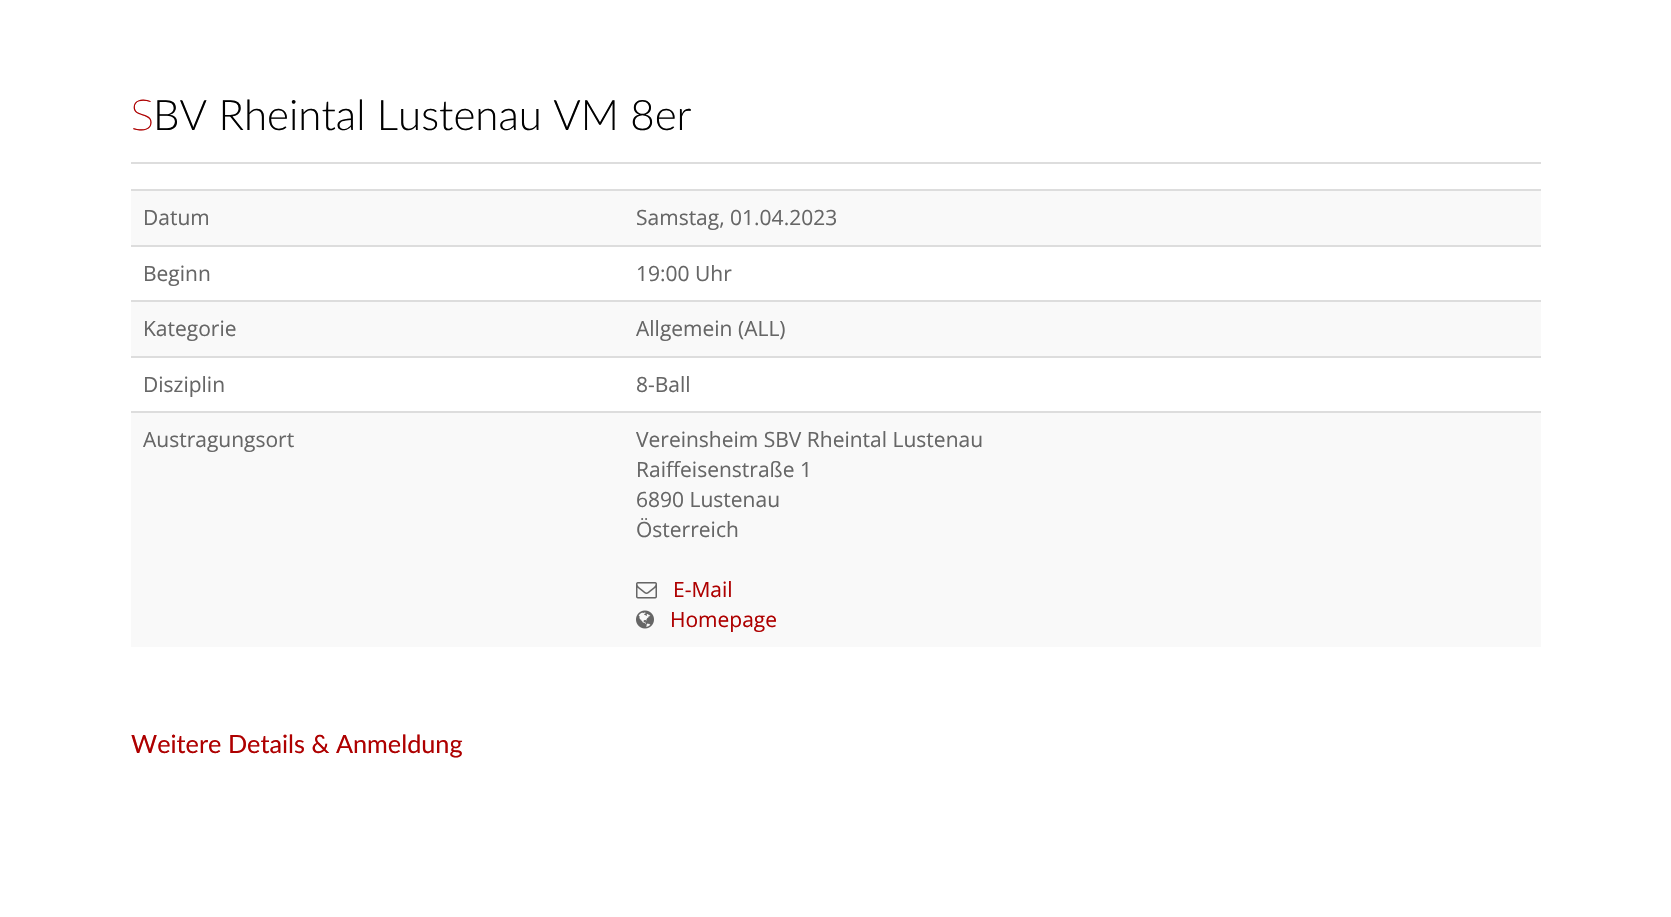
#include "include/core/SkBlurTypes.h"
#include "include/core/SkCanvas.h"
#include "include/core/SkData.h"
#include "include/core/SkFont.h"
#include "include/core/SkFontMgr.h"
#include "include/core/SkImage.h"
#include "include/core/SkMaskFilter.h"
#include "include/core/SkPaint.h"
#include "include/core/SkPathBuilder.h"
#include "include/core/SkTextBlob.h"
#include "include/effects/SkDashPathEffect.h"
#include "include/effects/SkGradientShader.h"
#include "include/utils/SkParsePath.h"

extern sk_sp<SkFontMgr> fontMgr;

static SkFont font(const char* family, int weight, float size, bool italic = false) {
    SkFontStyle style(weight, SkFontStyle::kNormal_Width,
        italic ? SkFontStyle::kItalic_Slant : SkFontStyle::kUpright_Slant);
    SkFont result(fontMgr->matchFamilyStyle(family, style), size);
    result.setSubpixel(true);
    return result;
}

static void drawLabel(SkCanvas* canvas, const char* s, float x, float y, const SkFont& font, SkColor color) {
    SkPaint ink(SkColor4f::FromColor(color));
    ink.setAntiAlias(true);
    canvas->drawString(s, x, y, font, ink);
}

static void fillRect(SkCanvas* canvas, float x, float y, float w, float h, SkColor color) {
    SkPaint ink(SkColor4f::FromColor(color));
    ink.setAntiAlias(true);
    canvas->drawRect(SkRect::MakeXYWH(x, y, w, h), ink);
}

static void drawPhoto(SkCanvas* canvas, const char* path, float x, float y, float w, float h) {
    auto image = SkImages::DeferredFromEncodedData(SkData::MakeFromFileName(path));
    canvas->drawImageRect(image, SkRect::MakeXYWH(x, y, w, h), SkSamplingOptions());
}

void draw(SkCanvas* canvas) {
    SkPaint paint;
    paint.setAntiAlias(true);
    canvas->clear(0xFFFFFFFF);
    fillRect(canvas, 131, 162, 1410, 2, 0xFFDDDDDD);
    SkFont font1 = font("Noto Sans", 100, 42);
    drawLabel(canvas, "S", 131, 130, font1, 0xFFAE0000);
    SkFont font2 = font("Lato", 300, 42);
    drawLabel(canvas, "BV Rheintal Lustenau VM 8er", 153, 130, font2, 0xFF000000);
    fillRect(canvas, 131, 191, 1410, 54, 0xFFF9F9F9);
    SkFont font3 = font("Open Sans", 400, 21);
    drawLabel(canvas, "Datum", 143, 225, font3, 0xFF666666);
    fillRect(canvas, 131, 189, 1410, 2, 0xFFDDDDDD);
    drawLabel(canvas, "Samstag, 01.04.2023", 636, 225, font3, 0xFF666666);
    drawLabel(canvas, "Beginn", 143, 281, font3, 0xFF666666);
    fillRect(canvas, 131, 245, 1410, 2, 0xFFDDDDDD);
    drawLabel(canvas, "19:00 Uhr", 636, 281, font3, 0xFF666666);
    fillRect(canvas, 131, 302, 1410, 54, 0xFFF9F9F9);
    drawLabel(canvas, "Kategorie", 143, 336, font3, 0xFF666666);
    fillRect(canvas, 131, 300, 1410, 2, 0xFFDDDDDD);
    drawLabel(canvas, "Allgemein (ALL)", 636, 336, font3, 0xFF666666);
    drawLabel(canvas, "Disziplin", 143, 392, font3, 0xFF666666);
    fillRect(canvas, 131, 356, 1410, 2, 0xFFDDDDDD);
    drawLabel(canvas, "8-Ball", 636, 392, font3, 0xFF666666);
    fillRect(canvas, 131, 413, 1410, 234, 0xFFF9F9F9);
    drawLabel(canvas, "Austragungsort", 143, 447, font3, 0xFF666666);
    fillRect(canvas, 131, 411, 1410, 2, 0xFFDDDDDD);
    drawLabel(canvas, "Vereinsheim SBV Rheintal Lustenau", 636, 447, font3, 0xFF666666);
    drawLabel(canvas, "Raiffeisenstraße 1", 636, 477, font3, 0xFF666666);
    drawLabel(canvas, "6890 Lustenau", 636, 507, font3, 0xFF666666);
    drawLabel(canvas, "Österreich", 636, 537, font3, 0xFF666666);
    drawPhoto(canvas, "assets/img1.png", 636, 582, 21, 17);
    drawLabel(canvas, "E-Mail", 673, 597, font3, 0xFFAE0000);
    drawPhoto(canvas, "assets/img2.png", 636, 610, 18, 19);
    drawLabel(canvas, "Homepage", 670, 627, font3, 0xFFAE0000);
    SkFont font4 = font("Lato", 400, 25.25f);
    drawLabel(canvas, "Weitere Details & Anmeldung", 131, 753, font4, 0xFFAE0000);
}
